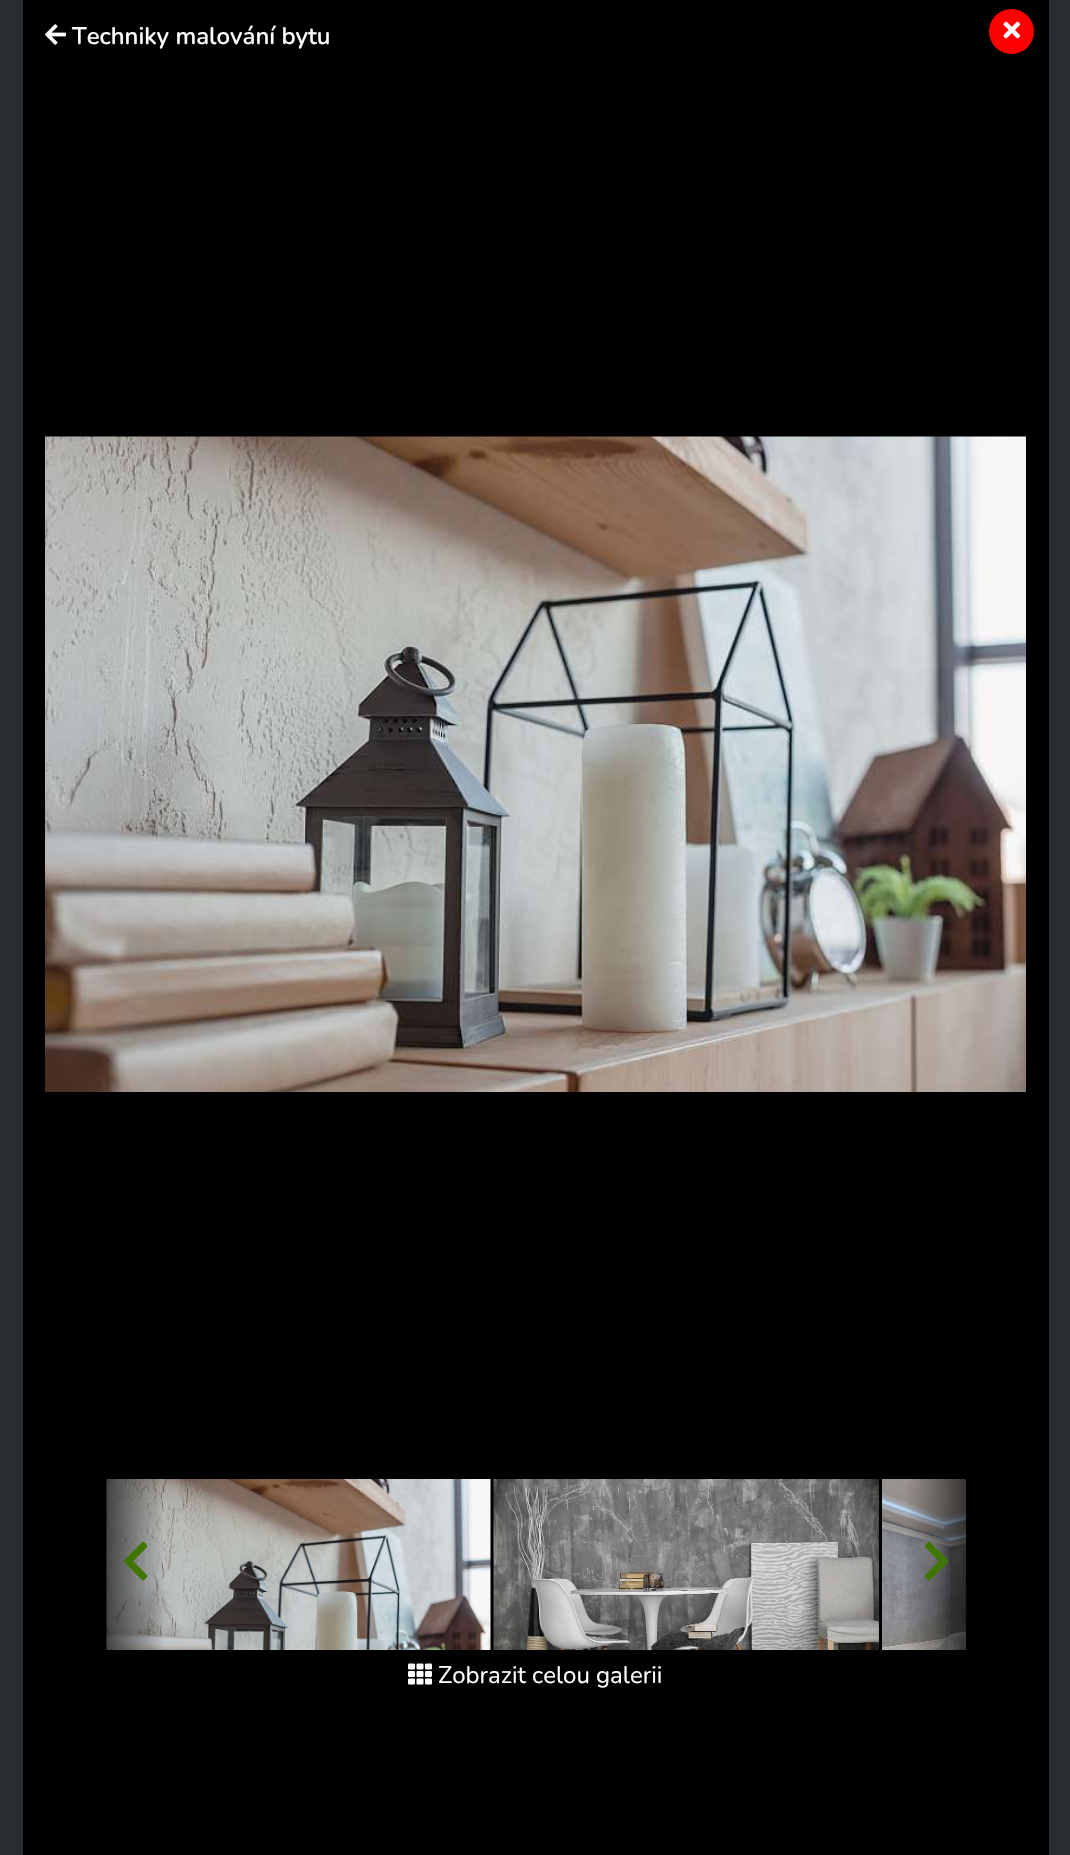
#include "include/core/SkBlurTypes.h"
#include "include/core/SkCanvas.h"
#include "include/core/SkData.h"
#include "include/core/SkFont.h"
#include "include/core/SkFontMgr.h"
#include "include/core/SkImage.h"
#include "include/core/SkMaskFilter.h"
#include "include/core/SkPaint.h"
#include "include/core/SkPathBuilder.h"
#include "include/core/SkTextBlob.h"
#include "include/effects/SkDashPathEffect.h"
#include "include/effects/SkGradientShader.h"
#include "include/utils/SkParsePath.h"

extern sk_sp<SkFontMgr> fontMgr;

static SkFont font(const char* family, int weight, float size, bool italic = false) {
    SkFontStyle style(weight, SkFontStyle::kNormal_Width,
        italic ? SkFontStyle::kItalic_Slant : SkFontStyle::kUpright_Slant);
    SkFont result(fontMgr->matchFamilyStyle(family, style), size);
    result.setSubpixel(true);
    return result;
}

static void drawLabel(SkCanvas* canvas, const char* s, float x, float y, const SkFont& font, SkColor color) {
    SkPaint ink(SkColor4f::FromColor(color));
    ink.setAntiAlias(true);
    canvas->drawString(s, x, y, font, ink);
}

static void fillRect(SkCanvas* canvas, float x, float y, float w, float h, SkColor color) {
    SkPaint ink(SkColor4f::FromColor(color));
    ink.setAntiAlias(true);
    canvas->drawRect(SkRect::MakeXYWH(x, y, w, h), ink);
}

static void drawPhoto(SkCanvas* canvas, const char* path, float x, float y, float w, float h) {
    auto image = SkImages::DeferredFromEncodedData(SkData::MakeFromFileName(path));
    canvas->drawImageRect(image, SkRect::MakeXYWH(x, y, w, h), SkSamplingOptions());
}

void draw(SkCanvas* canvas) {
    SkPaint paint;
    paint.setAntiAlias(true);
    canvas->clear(0xFF282D32);
    fillRect(canvas, 23, 0, 1026, 1855, 0xFF000000);
    drawPhoto(canvas, "assets/img1.png", 45, 24, 22, 21);
    SkFont font1 = font("Nunito", 600, 24);
    drawLabel(canvas, "Techniky malování bytu", 72, 44, font1, 0xFFFFFFFF);
    paint.setColor(0xFFFF0000);
    canvas->drawCircle(1011.5f, 31.5f, 22.5f, paint);
    drawPhoto(canvas, "assets/img2.png", 1003, 21, 17, 18);
    drawPhoto(canvas, "assets/img3.png", 45, 436, 981, 656);
    drawPhoto(canvas, "assets/img4.png", 106, 1479, 385, 171);
    drawPhoto(canvas, "assets/img5.png", 493, 1479, 386, 171);
    drawPhoto(canvas, "assets/img6.png", 882, 1479, 84, 171);
    {
        const SkColor colors[] = {0xA6000000, 0x00000000};
        const float stops[] = {0, 1};
        const SkPoint ends[] = {{105, 1564}, {165, 1564}};
        paint.setShader(SkGradientShader::MakeLinear(ends, colors, stops, 2, SkTileMode::kClamp));
        paint.setAlpha(255);
    }
    canvas->drawRect(SkRect::MakeXYWH(106, 1479, 57, 171), paint);
    drawPhoto(canvas, "assets/img7.png", 123, 1542, 25, 39);
    drawPhoto(canvas, "assets/img8.png", 925, 1542, 24, 39);
    drawPhoto(canvas, "assets/img9.png", 408, 1663, 24, 22);
    SkFont font2 = font("Nunito", 400, 24);
    drawLabel(canvas, "Zobrazit celou galerii", 438, 1683, font2, 0xFFFFFFFF);
}
